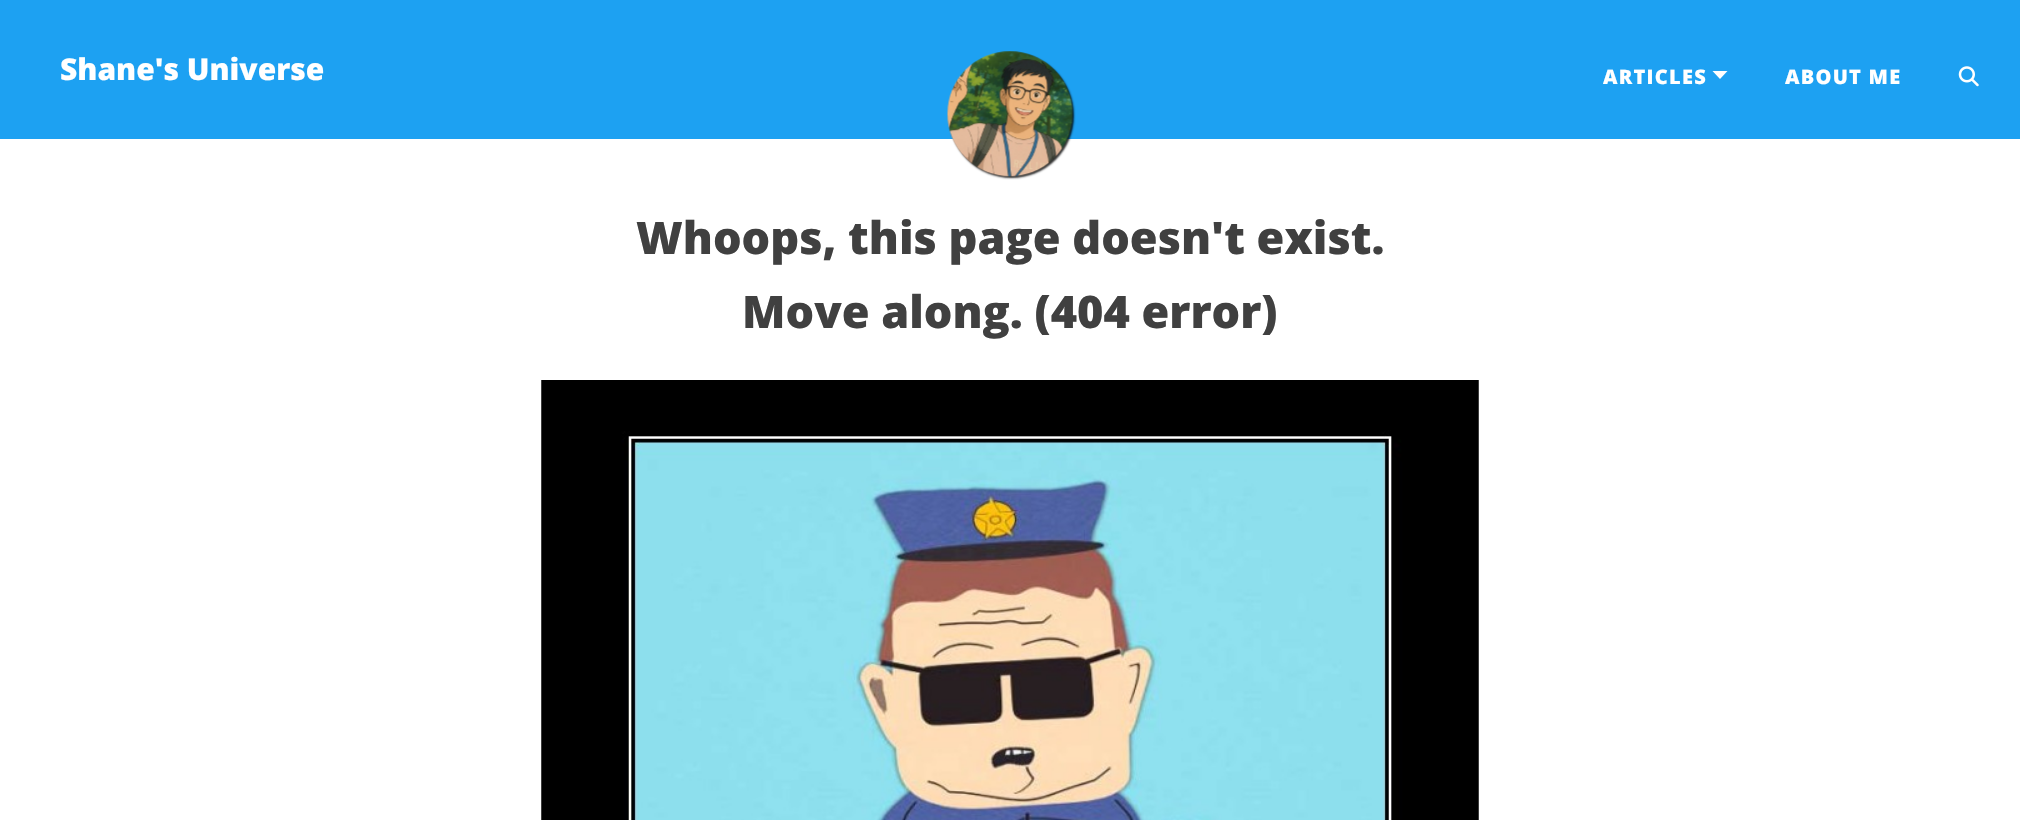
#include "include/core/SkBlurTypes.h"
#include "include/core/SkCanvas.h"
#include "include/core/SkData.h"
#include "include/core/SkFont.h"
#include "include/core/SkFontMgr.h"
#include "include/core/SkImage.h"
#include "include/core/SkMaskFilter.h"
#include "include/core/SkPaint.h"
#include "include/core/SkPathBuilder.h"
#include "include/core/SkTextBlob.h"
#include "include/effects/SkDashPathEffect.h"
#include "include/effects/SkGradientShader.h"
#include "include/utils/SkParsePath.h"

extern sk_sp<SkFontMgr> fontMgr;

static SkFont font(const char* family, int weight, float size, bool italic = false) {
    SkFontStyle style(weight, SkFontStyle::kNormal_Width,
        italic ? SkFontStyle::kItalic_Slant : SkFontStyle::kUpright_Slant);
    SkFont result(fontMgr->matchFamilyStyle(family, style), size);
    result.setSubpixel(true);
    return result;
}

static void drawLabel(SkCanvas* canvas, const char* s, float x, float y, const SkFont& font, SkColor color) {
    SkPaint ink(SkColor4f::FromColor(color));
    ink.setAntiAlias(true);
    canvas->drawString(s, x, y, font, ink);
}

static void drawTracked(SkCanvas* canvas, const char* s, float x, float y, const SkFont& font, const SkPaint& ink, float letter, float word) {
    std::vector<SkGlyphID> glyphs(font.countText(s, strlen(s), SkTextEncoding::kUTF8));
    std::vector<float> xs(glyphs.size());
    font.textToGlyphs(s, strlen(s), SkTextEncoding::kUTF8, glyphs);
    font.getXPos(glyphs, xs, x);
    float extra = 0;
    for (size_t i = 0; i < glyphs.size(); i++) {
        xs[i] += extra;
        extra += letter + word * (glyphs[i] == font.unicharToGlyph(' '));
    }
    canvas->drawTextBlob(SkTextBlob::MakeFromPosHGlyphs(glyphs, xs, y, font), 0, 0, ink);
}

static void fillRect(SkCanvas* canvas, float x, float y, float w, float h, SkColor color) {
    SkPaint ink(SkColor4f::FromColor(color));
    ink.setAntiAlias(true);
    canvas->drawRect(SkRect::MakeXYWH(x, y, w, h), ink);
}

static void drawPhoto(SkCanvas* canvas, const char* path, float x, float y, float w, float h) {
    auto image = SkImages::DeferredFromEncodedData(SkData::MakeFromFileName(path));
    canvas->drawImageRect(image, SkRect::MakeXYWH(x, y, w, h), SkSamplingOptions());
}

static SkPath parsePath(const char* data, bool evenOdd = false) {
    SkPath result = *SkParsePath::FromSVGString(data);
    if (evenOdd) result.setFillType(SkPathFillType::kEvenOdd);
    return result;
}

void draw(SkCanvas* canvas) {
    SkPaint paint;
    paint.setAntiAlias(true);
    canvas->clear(0xFFFFFFFF);
    fillRect(canvas, 0, 0, 2020, 139, 0xFF1DA1F2);
    SkFont font1 = font("Open Sans", 800, 30);
    drawLabel(canvas, "Shane's Universe", 60, 80, font1, 0xFFFFFFFF);
    paint.setColor(0xCC000000);
    paint.setMaskFilter(SkMaskFilter::MakeBlur(kNormal_SkBlurStyle, 1));
    canvas->drawRoundRect(SkRect::MakeXYWH(949, 53, 125, 125), 62.5f, 62.5f, paint);
    paint.setMaskFilter(nullptr);
    drawPhoto(canvas, "assets/img1.png", 947, 51, 126, 126);
    SkFont font2 = font("Open Sans", 800, 20);
    paint.setColor(0xFFFFFFFF);
    drawTracked(canvas, "ARTICLES", 1603, 84, font2, paint, 1.25f, 0);
    canvas->drawPath(parsePath("M1712.5 71H1727.5L1720 79Z"), paint);
    drawTracked(canvas, "ABOUT ME", 1785, 84, font2, paint, 1.25f, 0);
    drawPhoto(canvas, "assets/img2.png", 1958, 66, 21, 21);
    SkFont font3 = font("Open Sans", 800, 45);
    drawLabel(canvas, "Whoops, this page doesn't exist.", 636, 254, font3, 0xFF404040);
    drawLabel(canvas, "Move along. (404 error)", 742, 328, font3, 0xFF404040);
    drawPhoto(canvas, "assets/img3.png", 541, 380, 938, 440);
}
